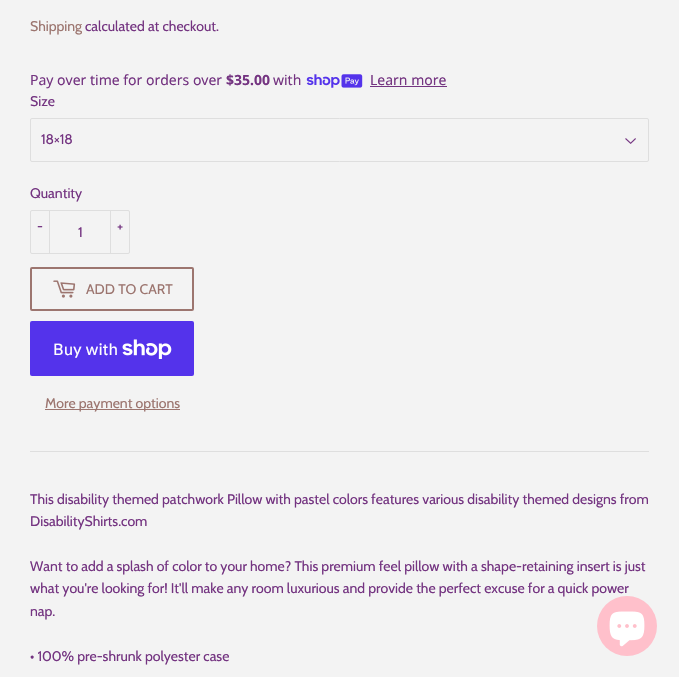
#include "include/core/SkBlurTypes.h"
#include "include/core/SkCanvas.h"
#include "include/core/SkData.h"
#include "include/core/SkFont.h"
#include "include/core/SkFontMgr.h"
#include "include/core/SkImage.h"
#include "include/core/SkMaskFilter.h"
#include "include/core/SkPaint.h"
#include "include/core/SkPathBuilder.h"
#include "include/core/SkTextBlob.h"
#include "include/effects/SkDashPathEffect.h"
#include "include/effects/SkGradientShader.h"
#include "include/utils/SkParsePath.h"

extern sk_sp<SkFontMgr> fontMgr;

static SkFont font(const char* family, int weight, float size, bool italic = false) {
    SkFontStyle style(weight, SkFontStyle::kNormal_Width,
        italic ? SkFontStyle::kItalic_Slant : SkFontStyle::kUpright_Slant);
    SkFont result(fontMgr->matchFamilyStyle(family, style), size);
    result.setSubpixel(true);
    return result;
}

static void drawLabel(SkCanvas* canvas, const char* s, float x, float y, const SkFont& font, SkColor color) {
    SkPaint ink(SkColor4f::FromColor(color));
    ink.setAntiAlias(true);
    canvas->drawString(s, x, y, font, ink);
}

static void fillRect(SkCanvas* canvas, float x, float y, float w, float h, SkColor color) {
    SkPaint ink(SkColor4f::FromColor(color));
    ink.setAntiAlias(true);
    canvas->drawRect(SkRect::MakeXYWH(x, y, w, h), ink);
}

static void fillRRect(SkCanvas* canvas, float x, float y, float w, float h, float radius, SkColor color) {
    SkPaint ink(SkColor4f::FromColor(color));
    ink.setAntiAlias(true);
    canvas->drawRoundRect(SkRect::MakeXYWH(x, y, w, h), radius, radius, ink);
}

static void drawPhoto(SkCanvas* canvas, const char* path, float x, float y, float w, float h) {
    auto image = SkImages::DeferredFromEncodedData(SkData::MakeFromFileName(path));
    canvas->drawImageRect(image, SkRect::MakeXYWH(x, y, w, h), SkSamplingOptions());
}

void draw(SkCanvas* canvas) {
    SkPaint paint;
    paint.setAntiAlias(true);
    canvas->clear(0xFFF3F3F3);
    SkFont font1 = font("Cabin", 400, 14);
    drawLabel(canvas, "Shipping", 30, 31, font1, 0xFF9C756F);
    drawLabel(canvas, "calculated at checkout.", 85, 31, font1, 0xFF743481);
    SkFont font2 = font("Noto Sans", 400, 14);
    drawLabel(canvas, "Pay over time for orders over", 30, 85, font2, 0xFF743481);
    SkFont font3 = font("Noto Sans", 700, 14);
    drawLabel(canvas, "$35.00", 226, 85, font3, 0xFF743481);
    drawLabel(canvas, "with", 273, 85, font2, 0xFF743481);
    drawPhoto(canvas, "assets/img1.png", 306, 74, 57, 14);
    drawLabel(canvas, "Learn more", 370, 85, font2, 0xFF743481);
    fillRect(canvas, 370, 86, 77, 1, 0xFF743481);
    drawLabel(canvas, "Size", 30, 106, font1, 0xFF743481);
    drawPhoto(canvas, "assets/img2.png", 625, 138, 11, 6);
    paint.setStroke(true);
    paint.setStrokeWidth(1);
    paint.setColor(0xFFDEDEDE);
    canvas->drawRoundRect(SkRect::MakeXYWH(30.5f, 118.5f, 618, 43), 1.5f, 1.5f, paint);
    drawLabel(canvas, "18×18", 41, 144, font1, 0xFF743481);
    drawLabel(canvas, "Quantity", 30, 198, font1, 0xFF743481);
    canvas->drawRoundRect(SkRect::MakeXYWH(30.5f, 210.5f, 99, 43), 1.5f, 1.5f, paint);
    fillRect(canvas, 49, 210, 1, 44, 0xFFDEDEDE);
    drawLabel(canvas, "-", 37, 231, font1, 0xFF743481);
    drawLabel(canvas, "1", 78, 237, font1, 0xFF743481);
    fillRect(canvas, 110, 210, 1, 44, 0xFFDEDEDE);
    drawLabel(canvas, "+", 117, 231, font1, 0xFF743481);
    paint.setStrokeWidth(2);
    paint.setColor(0xFF9C756F);
    canvas->drawRoundRect(SkRect::MakeXYWH(31, 268, 162, 42), 1, 1, paint);
    drawPhoto(canvas, "assets/img3.png", 53, 280, 23, 18);
    drawLabel(canvas, "ADD TO CART", 86, 294, font1, 0xFF9C756F);
    fillRRect(canvas, 30, 321, 164, 55, 2, 0xFF5433EB);
    SkFont font4 = font("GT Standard", 400, 16);
    drawLabel(canvas, "Buy with", 53, 355, font4, 0xFFFFFFFF);
    drawPhoto(canvas, "assets/img4.png", 122, 339, 50, 20);
    fillRect(canvas, 45, 409, 135, 1, 0xFF9C756F);
    drawLabel(canvas, "More payment options", 45, 408, font1, 0xFF9C756F);
    fillRect(canvas, 30, 451, 619, 1, 0xFFDEDEDE);
    drawLabel(canvas, "This disability themed patchwork Pillow with pastel colors features various disability themed designs from", 30, 504, font1, 0xFF743481);
    drawLabel(canvas, "DisabilityShirts.com", 30, 526, font1, 0xFF743481);
    drawLabel(canvas, "Want to add a splash of color to your home? This premium feel pillow with a shape-retaining insert is just", 30, 571, font1, 0xFF743481);
    drawLabel(canvas, "what you're looking for! It'll make any room luxurious and provide the perfect excuse for a quick power", 30, 593, font1, 0xFF743481);
    drawLabel(canvas, "nap.", 30, 616, font1, 0xFF743481);
    drawLabel(canvas, "• 100% pre-shrunk polyester case", 30, 661, font1, 0xFF743481);
    paint.setStroke(false);
    paint.setColor(0xFFFFC0CB);
    canvas->drawCircle(627, 626, 30, paint);
    drawPhoto(canvas, "assets/img5.png", 609, 611, 36, 36);
}
